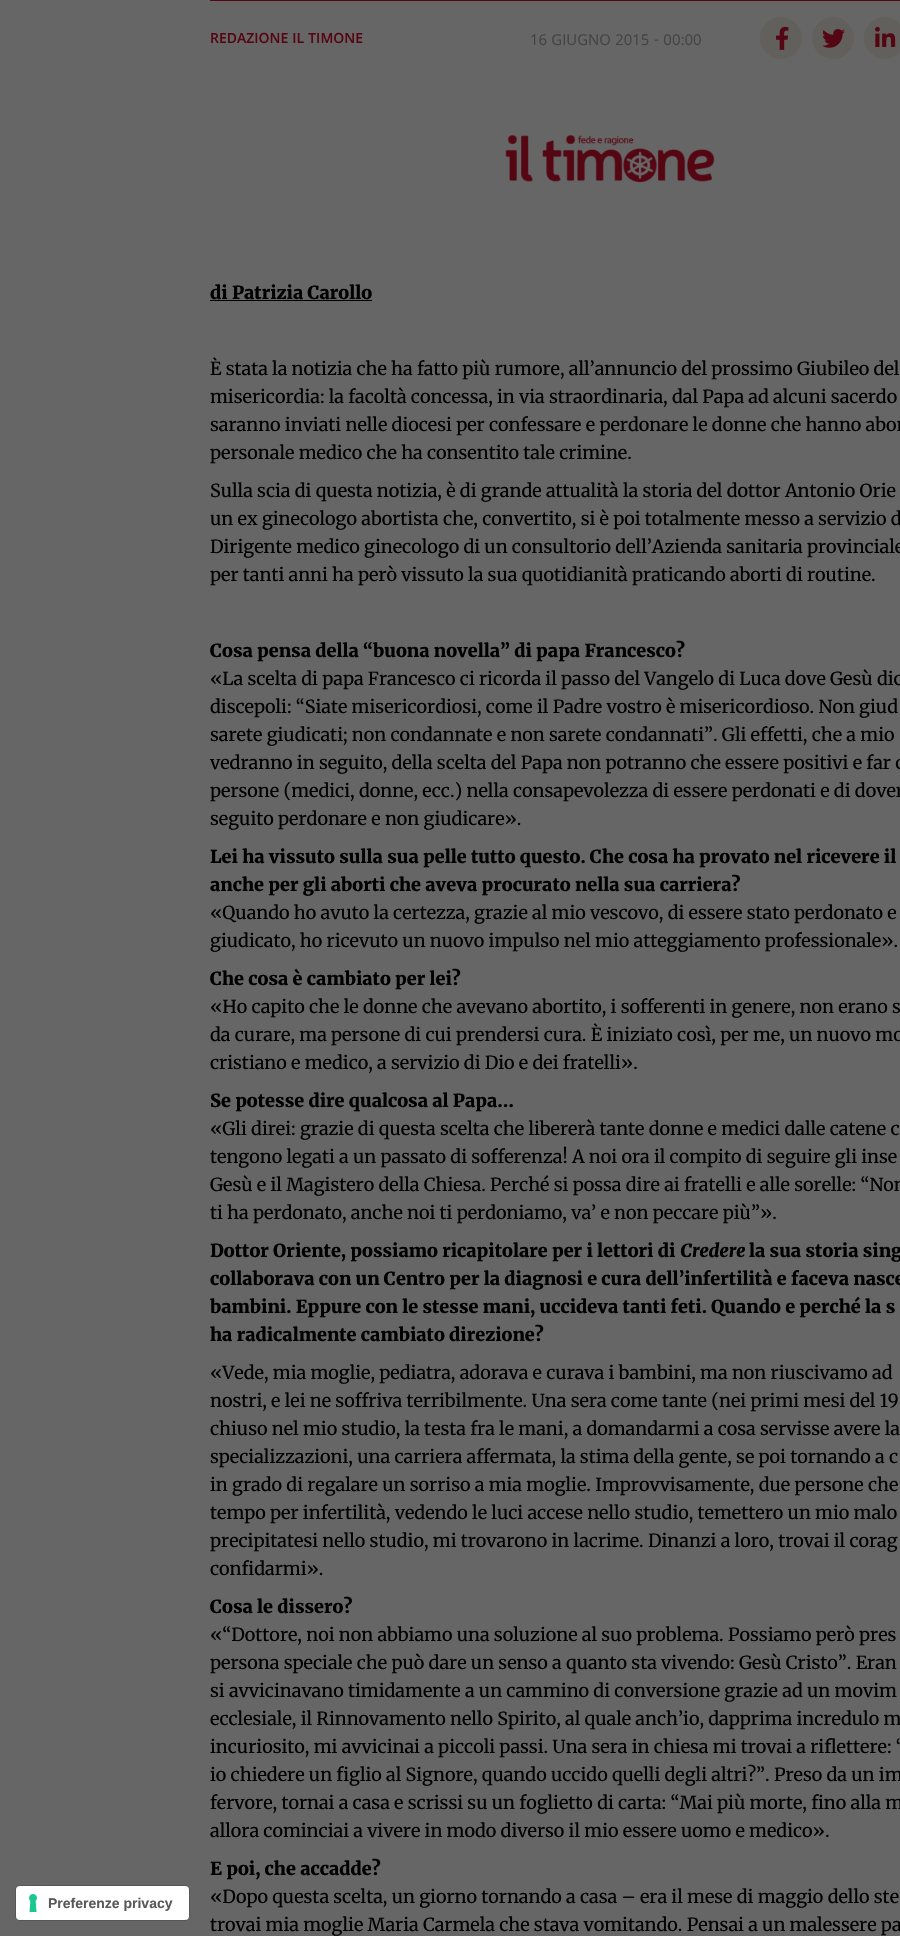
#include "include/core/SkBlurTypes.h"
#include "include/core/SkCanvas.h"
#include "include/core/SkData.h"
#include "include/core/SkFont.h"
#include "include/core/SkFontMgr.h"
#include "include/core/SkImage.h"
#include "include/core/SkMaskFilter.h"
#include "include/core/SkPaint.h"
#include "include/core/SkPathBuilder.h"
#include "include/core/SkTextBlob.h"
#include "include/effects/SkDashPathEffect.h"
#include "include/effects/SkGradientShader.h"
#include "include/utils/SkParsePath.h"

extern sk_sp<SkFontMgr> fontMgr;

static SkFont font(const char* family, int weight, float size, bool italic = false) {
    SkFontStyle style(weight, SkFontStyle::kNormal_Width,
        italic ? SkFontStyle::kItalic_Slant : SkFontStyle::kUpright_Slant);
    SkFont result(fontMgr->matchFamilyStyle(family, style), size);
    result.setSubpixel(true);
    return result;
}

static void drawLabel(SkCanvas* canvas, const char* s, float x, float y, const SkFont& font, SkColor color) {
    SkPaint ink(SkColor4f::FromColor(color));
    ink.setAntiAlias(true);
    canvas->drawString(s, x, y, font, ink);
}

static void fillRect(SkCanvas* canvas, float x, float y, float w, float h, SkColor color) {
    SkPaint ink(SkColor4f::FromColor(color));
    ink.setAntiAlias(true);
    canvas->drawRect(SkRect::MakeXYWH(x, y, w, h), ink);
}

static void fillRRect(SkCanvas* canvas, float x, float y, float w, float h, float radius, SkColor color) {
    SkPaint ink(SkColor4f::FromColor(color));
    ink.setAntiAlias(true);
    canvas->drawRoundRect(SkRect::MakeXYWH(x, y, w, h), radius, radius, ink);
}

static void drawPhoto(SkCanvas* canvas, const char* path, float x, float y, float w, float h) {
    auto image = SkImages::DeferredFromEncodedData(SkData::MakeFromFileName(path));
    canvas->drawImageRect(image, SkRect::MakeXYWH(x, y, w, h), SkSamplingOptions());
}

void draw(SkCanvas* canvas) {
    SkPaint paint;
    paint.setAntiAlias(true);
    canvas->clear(0xFF666666);
    paint.setStroke(true);
    paint.setStrokeWidth(1);
    paint.setColor(0xFF575757);
    canvas->drawRoundRect(SkRect::MakeXYWH(15.5f, 1885.5f, 174, 35), 4.5f, 4.5f, paint);
    fillRRect(canvas, 16, 1886, 173, 34, 4, 0xFFFFFFFF);
    drawPhoto(canvas, "assets/img1.png", 29, 1894, 8, 18);
    SkFont font1 = font("Liberation Sans", 700, 14);
    drawLabel(canvas, "Preferenze privacy", 48, 1908, font1, 0xFF595959);
    fillRect(canvas, 210, 0, 690, 1, 0xFF550613);
    SkFont font2 = font("Khula", 600, 15);
    drawLabel(canvas, "REDAZIONE IL TIMONE", 210, 43, font2, 0xFF550613);
    SkFont font3 = font("Khula", 400, 16);
    drawLabel(canvas, "16 GIUGNO 2015 - 00:00", 530, 45, font3, 0xFF434343);
    paint.setStroke(false);
    paint.setColor(0xFF62605D);
    canvas->drawCircle(781, 38, 21, paint);
    drawPhoto(canvas, "assets/img2.png", 776, 26, 13, 24);
    canvas->drawCircle(833, 38, 21, paint);
    drawPhoto(canvas, "assets/img3.png", 822, 29, 23, 19);
    canvas->drawCircle(885, 38, 21, paint);
    drawPhoto(canvas, "assets/img4.png", 875, 26, 21, 21);
    drawPhoto(canvas, "assets/img5.png", 505, 135, 210, 48);
    SkFont font4 = font("Merriweather", 900, 18);
    drawLabel(canvas, "di Patrizia Carollo", 210, 299, font4, 0xFF000000);
    fillRect(canvas, 210, 300, 162, 1, 0xFF000000);
    SkFont font5 = font("Merriweather", 400, 18);
    drawLabel(canvas, "È stata la notizia che ha fatto più rumore, all’annuncio del prossimo Giubileo del", 210, 375, font5, 0xFF000000);
    drawLabel(canvas, "misericordia: la facoltà concessa, in via straordinaria, dal Papa ad alcuni sacerdo", 210, 403, font5, 0xFF000000);
    drawLabel(canvas, "saranno inviati nelle diocesi per confessare e perdonare le donne che hanno abor", 210, 431, font5, 0xFF000000);
    drawLabel(canvas, "personale medico che ha consentito tale crimine.", 210, 459, font5, 0xFF000000);
    drawLabel(canvas, "Sulla scia di questa notizia, è di grande attualità la storia del dottor Antonio Orie", 210, 497, font5, 0xFF000000);
    drawLabel(canvas, "un ex ginecologo abortista che, convertito, si è poi totalmente messo a servizio d", 210, 525, font5, 0xFF000000);
    drawLabel(canvas, "Dirigente medico ginecologo di un consultorio dell’Azienda sanitaria provinciale", 210, 553, font5, 0xFF000000);
    drawLabel(canvas, "per tanti anni ha però vissuto la sua quotidianità praticando aborti di routine.", 210, 581, font5, 0xFF000000);
    drawLabel(canvas, "Cosa pensa della “buona novella” di papa Francesco?", 210, 657, font4, 0xFF000000);
    drawLabel(canvas, "«La scelta di papa Francesco ci ricorda il passo del Vangelo di Luca dove Gesù dic", 210, 685, font5, 0xFF000000);
    drawLabel(canvas, "discepoli: “Siate misericordiosi, come il Padre vostro è misericordioso. Non giud", 210, 713, font5, 0xFF000000);
    drawLabel(canvas, "sarete giudicati; non condannate e non sarete condannati”. Gli effetti, che a mio", 210, 741, font5, 0xFF000000);
    drawLabel(canvas, "vedranno in seguito, della scelta del Papa non potranno che essere positivi e far c", 210, 769, font5, 0xFF000000);
    drawLabel(canvas, "persone (medici, donne, ecc.) nella consapevolezza di essere perdonati e di dover", 210, 797, font5, 0xFF000000);
    drawLabel(canvas, "seguito perdonare e non giudicare».", 210, 825, font5, 0xFF000000);
    drawLabel(canvas, "Lei ha vissuto sulla sua pelle tutto questo. Che cosa ha provato nel ricevere il", 210, 863, font4, 0xFF000000);
    drawLabel(canvas, "anche per gli aborti che aveva procurato nella sua carriera?", 210, 891, font4, 0xFF000000);
    drawLabel(canvas, "«Quando ho avuto la certezza, grazie al mio vescovo, di essere stato perdonato e", 210, 919, font5, 0xFF000000);
    drawLabel(canvas, "giudicato, ho ricevuto un nuovo impulso nel mio atteggiamento professionale».", 210, 947, font5, 0xFF000000);
    drawLabel(canvas, "Che cosa è cambiato per lei?", 210, 985, font4, 0xFF000000);
    drawLabel(canvas, "«Ho capito che le donne che avevano abortito, i sofferenti in genere, non erano s", 210, 1013, font5, 0xFF000000);
    drawLabel(canvas, "da curare, ma persone di cui prendersi cura. È iniziato così, per me, un nuovo mo", 210, 1041, font5, 0xFF000000);
    drawLabel(canvas, "cristiano e medico, a servizio di Dio e dei fratelli».", 210, 1069, font5, 0xFF000000);
    drawLabel(canvas, "Se potesse dire qualcosa al Papa…", 210, 1107, font4, 0xFF000000);
    drawLabel(canvas, "«Gli direi: grazie di questa scelta che libererà tante donne e medici dalle catene c", 210, 1135, font5, 0xFF000000);
    drawLabel(canvas, "tengono legati a un passato di sofferenza! A noi ora il compito di seguire gli inse", 210, 1163, font5, 0xFF000000);
    drawLabel(canvas, "Gesù e il Magistero della Chiesa. Perché si possa dire ai fratelli e alle sorelle: “Non", 210, 1191, font5, 0xFF000000);
    drawLabel(canvas, "ti ha perdonato, anche noi ti perdoniamo, va’ e non peccare più”».", 210, 1219, font5, 0xFF000000);
    drawLabel(canvas, "Dottor Oriente, possiamo ricapitolare per i lettori di", 210, 1257, font4, 0xFF000000);
    SkFont font6 = font("Merriweather", 900, 18, true);
    drawLabel(canvas, "Credere", 680, 1257, font6, 0xFF000000);
    drawLabel(canvas, "la sua storia sing", 749, 1257, font4, 0xFF000000);
    drawLabel(canvas, "collaborava con un Centro per la diagnosi e cura dell’infertilità e faceva nasce", 210, 1285, font4, 0xFF000000);
    drawLabel(canvas, "bambini. Eppure con le stesse mani, uccideva tanti feti. Quando e perché la s", 210, 1313, font4, 0xFF000000);
    drawLabel(canvas, "ha radicalmente cambiato direzione?", 210, 1341, font4, 0xFF000000);
    drawLabel(canvas, "«Vede, mia moglie, pediatra, adorava e curava i bambini, ma non riuscivamo ad", 210, 1379, font5, 0xFF000000);
    drawLabel(canvas, "nostri, e lei ne soffriva terribilmente. Una sera come tante (nei primi mesi del 19", 210, 1407, font5, 0xFF000000);
    drawLabel(canvas, "chiuso nel mio studio, la testa fra le mani, a domandarmi a cosa servisse avere la", 210, 1435, font5, 0xFF000000);
    drawLabel(canvas, "specializzazioni, una carriera affermata, la stima della gente, se poi tornando a c", 210, 1463, font5, 0xFF000000);
    drawLabel(canvas, "in grado di regalare un sorriso a mia moglie. Improvvisamente, due persone che", 210, 1491, font5, 0xFF000000);
    drawLabel(canvas, "tempo per infertilità, vedendo le luci accese nello studio, temettero un mio malo", 210, 1519, font5, 0xFF000000);
    drawLabel(canvas, "precipitatesi nello studio, mi trovarono in lacrime. Dinanzi a loro, trovai il corag", 210, 1547, font5, 0xFF000000);
    drawLabel(canvas, "confidarmi».", 210, 1575, font5, 0xFF000000);
    drawLabel(canvas, "Cosa le dissero?", 210, 1613, font4, 0xFF000000);
    drawLabel(canvas, "«“Dottore, noi non abbiamo una soluzione al suo problema. Possiamo però pres", 210, 1641, font5, 0xFF000000);
    drawLabel(canvas, "persona speciale che può dare un senso a quanto sta vivendo: Gesù Cristo”. Eran", 210, 1669, font5, 0xFF000000);
    drawLabel(canvas, "si avvicinavano timidamente a un cammino di conversione grazie ad un movim", 210, 1697, font5, 0xFF000000);
    drawLabel(canvas, "ecclesiale, il Rinnovamento nello Spirito, al quale anch’io, dapprima incredulo m", 210, 1725, font5, 0xFF000000);
    drawLabel(canvas, "incuriosito, mi avvicinai a piccoli passi. Una sera in chiesa mi trovai a riflettere: “", 210, 1753, font5, 0xFF000000);
    drawLabel(canvas, "io chiedere un figlio al Signore, quando uccido quelli degli altri?”. Preso da un im", 210, 1781, font5, 0xFF000000);
    drawLabel(canvas, "fervore, tornai a casa e scrissi su un foglietto di carta: “Mai più morte, fino alla m", 210, 1809, font5, 0xFF000000);
    drawLabel(canvas, "allora cominciai a vivere in modo diverso il mio essere uomo e medico».", 210, 1837, font5, 0xFF000000);
    drawLabel(canvas, "E poi, che accadde?", 210, 1875, font4, 0xFF000000);
    drawLabel(canvas, "«Dopo questa scelta, un giorno tornando a casa – era il mese di maggio dello ste", 210, 1903, font5, 0xFF000000);
    drawLabel(canvas, "trovai mia moglie Maria Carmela che stava vomitando. Pensai a un malessere pa", 210, 1931, font5, 0xFF000000);
}
